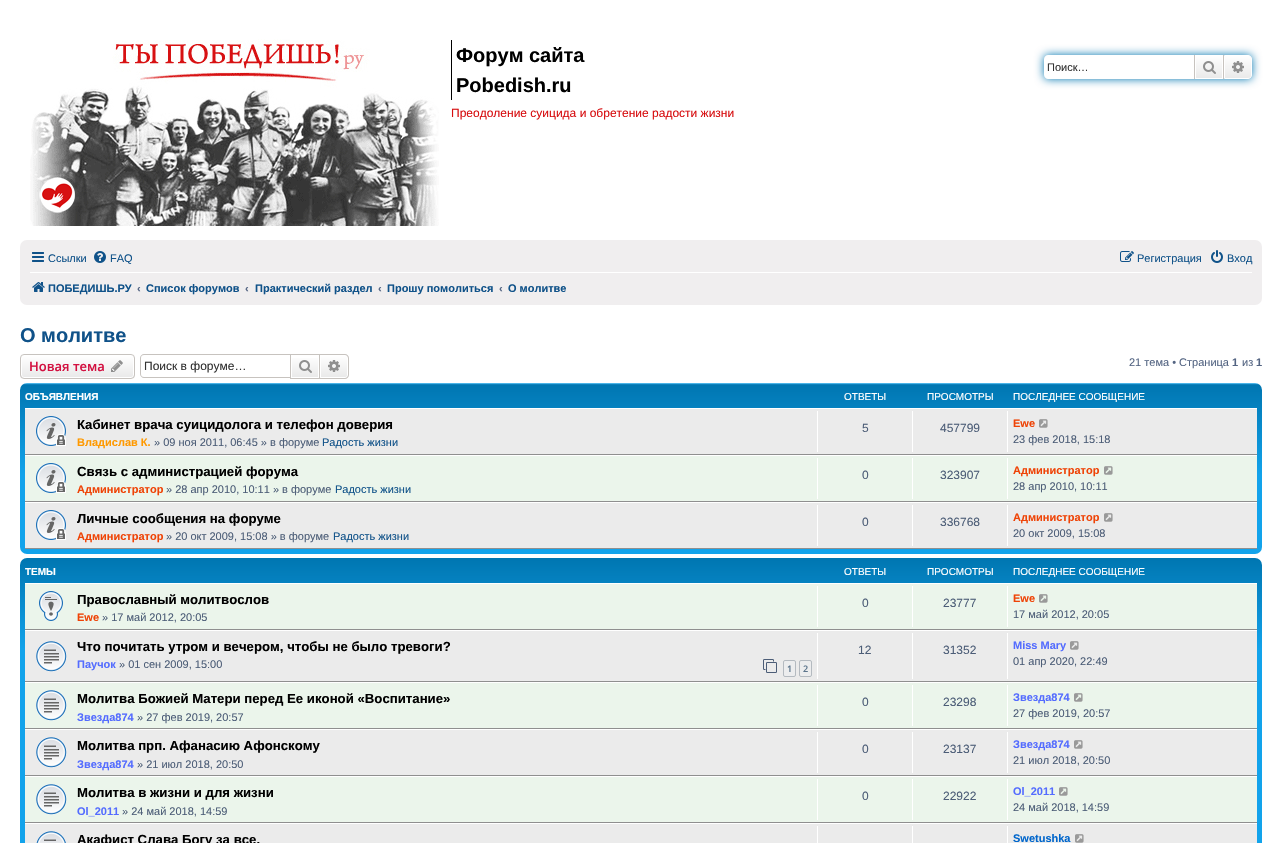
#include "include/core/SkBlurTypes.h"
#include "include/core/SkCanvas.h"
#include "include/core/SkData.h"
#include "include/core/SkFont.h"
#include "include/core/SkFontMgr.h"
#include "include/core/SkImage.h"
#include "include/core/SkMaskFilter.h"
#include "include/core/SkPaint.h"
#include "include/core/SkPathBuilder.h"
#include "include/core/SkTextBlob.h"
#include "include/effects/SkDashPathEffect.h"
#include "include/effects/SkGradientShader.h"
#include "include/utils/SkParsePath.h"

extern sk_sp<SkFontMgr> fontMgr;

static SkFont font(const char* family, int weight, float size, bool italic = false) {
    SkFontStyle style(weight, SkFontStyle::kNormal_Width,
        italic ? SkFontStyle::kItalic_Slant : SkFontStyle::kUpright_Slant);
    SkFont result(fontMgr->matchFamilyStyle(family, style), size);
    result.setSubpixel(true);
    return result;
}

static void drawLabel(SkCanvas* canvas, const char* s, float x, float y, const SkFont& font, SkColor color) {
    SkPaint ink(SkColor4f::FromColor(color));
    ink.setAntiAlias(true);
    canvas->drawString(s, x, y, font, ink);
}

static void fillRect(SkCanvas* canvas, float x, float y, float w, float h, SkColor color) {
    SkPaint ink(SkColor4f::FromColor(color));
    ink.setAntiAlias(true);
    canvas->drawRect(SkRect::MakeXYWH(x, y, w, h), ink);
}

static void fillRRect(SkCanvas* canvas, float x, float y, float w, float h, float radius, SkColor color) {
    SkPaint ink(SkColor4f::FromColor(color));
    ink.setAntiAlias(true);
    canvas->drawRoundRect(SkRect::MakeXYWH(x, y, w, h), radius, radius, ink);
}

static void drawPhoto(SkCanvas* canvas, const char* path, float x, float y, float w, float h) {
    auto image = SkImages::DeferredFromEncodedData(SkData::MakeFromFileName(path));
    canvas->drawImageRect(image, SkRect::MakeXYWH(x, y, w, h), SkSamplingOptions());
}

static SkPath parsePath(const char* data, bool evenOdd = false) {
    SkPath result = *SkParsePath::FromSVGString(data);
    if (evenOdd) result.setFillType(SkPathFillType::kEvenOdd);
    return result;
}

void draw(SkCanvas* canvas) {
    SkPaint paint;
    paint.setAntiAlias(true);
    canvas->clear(0xFFFFFFFF);
    drawPhoto(canvas, "assets/img1.png", 30, 39, 409, 187);
    fillRect(canvas, 451, 40, 1, 60, 0xFF000000);
    SkFont font1 = font("Liberation Sans", 700, 20);
    drawLabel(canvas, "Форум сайта", 456, 62, font1, 0xFF000000);
    drawLabel(canvas, "Pobedish.ru", 456, 92, font1, 0xFF000000);
    SkFont font2 = font("Liberation Sans", 400, 12);
    drawLabel(canvas, "Преодоление суицида и обретение радости жизни", 451, 117, font2, 0xFFD70F11);
    paint.setColor(0xFF0075B0);
    paint.setMaskFilter(SkMaskFilter::MakeBlur(kNormal_SkBlurStyle, 5));
    canvas->drawRoundRect(SkRect::MakeXYWH(1044, 55, 208, 24), 4, 4, paint);
    paint.setMaskFilter(nullptr);
    paint.setColor(0xFFFFFFFF);
    canvas->drawPath(parsePath("M1048 55H1194V79H1048C1046 79 1044 77 1044 75V59C1044 57 1046 55 1048 55Z"), paint);
    SkFont font3 = font("Liberation Sans", 400, 11);
    drawLabel(canvas, "Поиск…", 1047, 71, font3, 0xFF333333);
    {
        const SkColor colors[] = {0xFFFFFFFF, 0xFFE9E9E9};
        const float stops[] = {0, 1};
        const SkPoint ends[] = {{1209, 55}, {1209, 79}};
        paint.setShader(SkGradientShader::MakeLinear(ends, colors, stops, 2, SkTileMode::kClamp));
        paint.setAlpha(255);
    }
    canvas->drawRect(SkRect::MakeXYWH(1196, 56, 26, 22), paint);
    paint.setStroke(true);
    paint.setStrokeWidth(1);
    paint.setShader(nullptr);
    paint.setColor(0xFFFFFFFF);
    canvas->drawRect(SkRect::MakeXYWH(1195.5f, 55.5f, 27, 23), paint);
    fillRect(canvas, 1223, 55, 1, 24, 0xFFC7C3BF);
    fillRect(canvas, 1194, 55, 1, 24, 0xFFC7C3BF);
    drawPhoto(canvas, "assets/img2.png", 1203, 61, 13, 13);
    paint.setStroke(false);
    {
        const SkColor colors[] = {0xFFFFFFFF, 0xFFE9E9E9};
        const float stops[] = {0, 1};
        const SkPoint ends[] = {{1238, 55}, {1238, 79}};
        paint.setShader(SkGradientShader::MakeLinear(ends, colors, stops, 2, SkTileMode::kClamp));
        paint.setAlpha(255);
    }
    canvas->drawPath(parsePath("M1224.5 55.5H1248C1250 55.5 1251.5 57 1251.5 59V75C1251.5 77 1250 78.5 1248 78.5H1224.5Z"), paint);
    paint.setStroke(true);
    paint.setShader(nullptr);
    paint.setColor(0xFFFFFFFF);
    canvas->drawPath(parsePath("M1224.5 55.5H1248C1250 55.5 1251.5 57 1251.5 59V75C1251.5 77 1250 78.5 1248 78.5H1224.5Z"), paint);
    drawPhoto(canvas, "assets/img3.png", 1232, 61, 12, 12);
    fillRRect(canvas, 20, 240, 1242, 65, 7, 0xFFF0EEEF);
    drawPhoto(canvas, "assets/img4.png", 32, 252, 12, 10);
    drawLabel(canvas, "Ссылки", 48, 262, font3, 0xFF105289);
    drawPhoto(canvas, "assets/img5.png", 94, 251, 12, 12);
    drawLabel(canvas, "FAQ", 110, 262, font3, 0xFF105289);
    drawPhoto(canvas, "assets/img6.png", 1120, 251, 14, 11);
    drawLabel(canvas, "Регистрация", 1137, 262, font3, 0xFF105289);
    drawPhoto(canvas, "assets/img7.png", 1211, 250, 12, 13);
    drawLabel(canvas, "Вход", 1227, 262, font3, 0xFF105289);
    fillRect(canvas, 30, 272, 1222, 1, 0xFFFFFFFF);
    drawPhoto(canvas, "assets/img8.png", 32, 282, 13, 10);
    SkFont font4 = font("Liberation Sans", 700, 11);
    drawLabel(canvas, "ПОБЕДИШЬ.РУ", 48, 292, font4, 0xFF105289);
    drawLabel(canvas, "‹", 137, 292, font4, 0xFF536482);
    drawLabel(canvas, "Список форумов", 146, 292, font4, 0xFF105289);
    drawLabel(canvas, "‹", 245, 292, font4, 0xFF536482);
    drawLabel(canvas, "Практический раздел", 255, 292, font4, 0xFF105289);
    drawLabel(canvas, "‹", 378, 292, font4, 0xFF536482);
    drawLabel(canvas, "Прошу помолиться", 387, 292, font4, 0xFF105289);
    drawLabel(canvas, "‹", 499, 292, font4, 0xFF536482);
    drawLabel(canvas, "О молитве", 508, 292, font4, 0xFF105289);
    drawLabel(canvas, "О молитве", 20, 342, font1, 0xFF105289);
    canvas->save();
    canvas->clipPath(parsePath("M24 354H131C133 354 135 356 135 358V375C135 377 133 379 131 379H24C22 379 20 377 20 375V358C20 356 22 354 24 354Z"), true);
    paint.setStroke(false);
    {
        const SkColor colors[] = {0xFFFFFFFF, 0xFFE9E9E9};
        const float stops[] = {0, 1};
        const SkPoint ends[] = {{78, 355}, {78, 378}};
        paint.setShader(SkGradientShader::MakeLinear(ends, colors, stops, 2, SkTileMode::kClamp));
        paint.setAlpha(255);
    }
    canvas->drawRect(SkRect::MakeXYWH(20, 355, 115, 23), paint);
    canvas->restore();
    paint.setStroke(true);
    paint.setShader(nullptr);
    paint.setColor(0xFFFFFFFF);
    canvas->drawRoundRect(SkRect::MakeXYWH(21.5f, 355.5f, 112, 22), 2.5f, 2.5f, paint);
    paint.setColor(0xFFC7C3BF);
    canvas->drawRoundRect(SkRect::MakeXYWH(20.5f, 354.5f, 114, 24), 3.5f, 3.5f, paint);
    SkFont font5 = font("Open Sans", 600, 13);
    drawLabel(canvas, "Новая тема", 29, 371, font5, 0xFFD31141);
    drawPhoto(canvas, "assets/img9.png", 111, 360, 12, 12);
    paint.setStroke(false);
    canvas->drawPath(parsePath("M144 354H290V378H144C142 378 140 376 140 374V358C140 356 142 354 144 354ZM144 355H290V377H144C142 377 141 376 141 374V358C141 356 142 355 144 355Z", true), paint);
    drawLabel(canvas, "Поиск в форуме…", 144, 370, font2, 0xFF333333);
    {
        const SkColor colors[] = {0xFFFFFFFF, 0xFFE9E9E9};
        const float stops[] = {0, 1};
        const SkPoint ends[] = {{305, 355}, {305, 378}};
        paint.setShader(SkGradientShader::MakeLinear(ends, colors, stops, 2, SkTileMode::kClamp));
        paint.setAlpha(255);
    }
    canvas->drawRect(SkRect::MakeXYWH(292, 358, 26, 19), paint);
    paint.setStroke(true);
    paint.setShader(nullptr);
    paint.setColor(0xFFC7C3BF);
    canvas->drawRect(SkRect::MakeXYWH(290.5f, 354.5f, 29, 24), paint);
    drawPhoto(canvas, "assets/img10.png", 299, 360, 13, 13);
    paint.setStroke(false);
    {
        const SkColor colors[] = {0xFFFFFFFF, 0xFFE9E9E9};
        const float stops[] = {0, 1};
        const SkPoint ends[] = {{334, 355}, {334, 378}};
        paint.setShader(SkGradientShader::MakeLinear(ends, colors, stops, 2, SkTileMode::kClamp));
        paint.setAlpha(255);
    }
    canvas->drawPath(parsePath("M320.5 355.5H345C346.5 355.5 347.5 356.5 347.5 358V375C347.5 376.5 346.5 377.5 345 377.5H320.5Z"), paint);
    paint.setStroke(true);
    paint.setShader(nullptr);
    paint.setColor(0xFFFFFFFF);
    canvas->drawPath(parsePath("M320.5 355.5H345C346.5 355.5 347.5 356.5 347.5 358V375C347.5 376.5 346.5 377.5 345 377.5H320.5Z"), paint);
    paint.setStroke(false);
    paint.setColor(0xFFC7C3BF);
    canvas->drawPath(parsePath("M320 354H345C347 354 349 356 349 358V375C349 377 347 379 345 379H320ZM320 355H345C346.5 355 348 356.5 348 358V375C348 376.5 346.5 378 345 378H320Z", true), paint);
    drawPhoto(canvas, "assets/img11.png", 328, 360, 12, 12);
    drawLabel(canvas, "21 тема • Страница", 1129, 366, font3, 0xFF536482);
    drawLabel(canvas, "1", 1232, 366, font4, 0xFF536482);
    drawLabel(canvas, "из", 1242, 366, font3, 0xFF536482);
    drawLabel(canvas, "1", 1256, 366, font4, 0xFF536482);
    {
        const SkColor colors[] = {0xFF6ACEFF, 0xFF0076B1, 0xFF12A3EB, 0xFF12A3EB};
        const float stops[] = {0, 0.01f, 0.54f, 1};
        const SkPoint ends[] = {{641, 383}, {641, 554}};
        paint.setShader(SkGradientShader::MakeLinear(ends, colors, stops, 4, SkTileMode::kClamp));
        paint.setAlpha(255);
    }
    canvas->drawRoundRect(SkRect::MakeXYWH(20, 383, 1242, 171), 7, 7, paint);
    SkFont font6 = font("Liberation Sans", 700, 10);
    drawLabel(canvas, "ОБЪЯВЛЕНИЯ", 25, 400, font6, 0xFFFFFFFF);
    SkFont font7 = font("Liberation Sans", 400, 10);
    drawLabel(canvas, "ОТВЕТЫ", 844, 400, font7, 0xFFFFFFFF);
    drawLabel(canvas, "ПРОСМОТРЫ", 927, 400, font7, 0xFFFFFFFF);
    drawLabel(canvas, "ПОСЛЕДНЕЕ СООБЩЕНИЕ", 1013, 400, font7, 0xFFFFFFFF);
    fillRect(canvas, 25, 409, 1232, 45, 0xFFEBEBEB);
    fillRect(canvas, 25, 408, 1232, 1, 0xFFFFFFFF);
    fillRect(canvas, 25, 454, 1232, 1, 0xFF8F8F8F);
    drawPhoto(canvas, "assets/img12.png", 36, 416, 30, 30);
    SkFont font8 = font("Liberation Sans", 700, 13.2f);
    drawLabel(canvas, "Кабинет врача суицидолога и телефон доверия", 77, 429, font8, 0xFF000000);
    drawLabel(canvas, "Владислав К.", 77, 446, font4, 0xFFFF9900);
    drawLabel(canvas, "» 09 ноя 2011, 06:45 » в форуме", 154, 446, font3, 0xFF4C5D77);
    drawLabel(canvas, "Радость жизни", 322, 446, font3, 0xFF105289);
    fillRect(canvas, 817, 411, 1, 41, 0xFFFFFFFF);
    drawLabel(canvas, "5", 862, 432, font2, 0xFF4C5D77);
    fillRect(canvas, 912, 411, 1, 41, 0xFFFFFFFF);
    drawLabel(canvas, "457799", 940, 432, font2, 0xFF4C5D77);
    fillRect(canvas, 1007, 411, 1, 41, 0xFFFFFFFF);
    drawLabel(canvas, "Ewe", 1013, 427, font4, 0xFFEF4306);
    drawPhoto(canvas, "assets/img13.png", 1039, 419, 9, 9);
    drawLabel(canvas, "23 фев 2018, 15:18", 1013, 443, font3, 0xFF4C5D77);
    fillRect(canvas, 25, 456, 1232, 45, 0xFFEBF5EB);
    fillRect(canvas, 25, 455, 1232, 1, 0xFFFFFFFF);
    fillRect(canvas, 25, 501, 1232, 1, 0xFF8F8F8F);
    drawPhoto(canvas, "assets/img14.png", 36, 463, 30, 30);
    drawLabel(canvas, "Связь с администрацией форума", 77, 476, font8, 0xFF000000);
    drawLabel(canvas, "Администратор", 77, 493, font4, 0xFFEF4306);
    drawLabel(canvas, "» 28 апр 2010, 10:11 » в форуме", 166, 493, font3, 0xFF4C5D77);
    drawLabel(canvas, "Радость жизни", 335, 493, font3, 0xFF105289);
    fillRect(canvas, 817, 458, 1, 41, 0xFFFFFFFF);
    drawLabel(canvas, "0", 862, 479, font2, 0xFF4C5D77);
    fillRect(canvas, 912, 458, 1, 41, 0xFFFFFFFF);
    drawLabel(canvas, "323907", 940, 479, font2, 0xFF4C5D77);
    fillRect(canvas, 1007, 458, 1, 41, 0xFFFFFFFF);
    drawLabel(canvas, "Администратор", 1013, 474, font4, 0xFFEF4306);
    drawPhoto(canvas, "assets/img15.png", 1104, 466, 9, 9);
    drawLabel(canvas, "28 апр 2010, 10:11", 1013, 490, font3, 0xFF4C5D77);
    fillRect(canvas, 25, 503, 1232, 45, 0xFFEBEBEB);
    fillRect(canvas, 25, 502, 1232, 1, 0xFFFFFFFF);
    fillRect(canvas, 25, 548, 1232, 1, 0xFF8F8F8F);
    drawPhoto(canvas, "assets/img12.png", 36, 510, 30, 30);
    drawLabel(canvas, "Личные сообщения на форуме", 77, 523, font8, 0xFF000000);
    drawLabel(canvas, "Администратор", 77, 540, font4, 0xFFEF4306);
    drawLabel(canvas, "» 20 окт 2009, 15:08 » в форуме", 166, 540, font3, 0xFF4C5D77);
    drawLabel(canvas, "Радость жизни", 333, 540, font3, 0xFF105289);
    fillRect(canvas, 817, 505, 1, 41, 0xFFFFFFFF);
    drawLabel(canvas, "0", 862, 526, font2, 0xFF4C5D77);
    fillRect(canvas, 912, 505, 1, 41, 0xFFFFFFFF);
    drawLabel(canvas, "336768", 940, 526, font2, 0xFF4C5D77);
    fillRect(canvas, 1007, 505, 1, 41, 0xFFFFFFFF);
    drawLabel(canvas, "Администратор", 1013, 521, font4, 0xFFEF4306);
    drawPhoto(canvas, "assets/img13.png", 1104, 513, 9, 9);
    drawLabel(canvas, "20 окт 2009, 15:08", 1013, 537, font3, 0xFF4C5D77);
    {
        const SkColor colors[] = {0xFF6ACEFF, 0xFF0076B1, 0xFF12A3EB, 0xFF12A3EB};
        const float stops[] = {0, 0, 0.09f, 1};
        const SkPoint ends[] = {{641, 558}, {641, 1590}};
        paint.setShader(SkGradientShader::MakeLinear(ends, colors, stops, 4, SkTileMode::kClamp));
        paint.setAlpha(255);
    }
    canvas->drawRoundRect(SkRect::MakeXYWH(20, 558, 1242, 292), 7, 7, paint);
    drawLabel(canvas, "ТЕМЫ", 25, 575, font6, 0xFFFFFFFF);
    drawLabel(canvas, "ОТВЕТЫ", 844, 575, font7, 0xFFFFFFFF);
    drawLabel(canvas, "ПРОСМОТРЫ", 927, 575, font7, 0xFFFFFFFF);
    drawLabel(canvas, "ПОСЛЕДНЕЕ СООБЩЕНИЕ", 1013, 575, font7, 0xFFFFFFFF);
    fillRect(canvas, 25, 584, 1232, 45, 0xFFEBF5EB);
    fillRect(canvas, 25, 583, 1232, 1, 0xFFFFFFFF);
    fillRect(canvas, 25, 629, 1232, 1, 0xFF8F8F8F);
    drawPhoto(canvas, "assets/img16.png", 39, 591, 24, 30);
    drawLabel(canvas, "Православный молитвослов", 77, 604, font8, 0xFF000000);
    drawLabel(canvas, "Ewe", 77, 621, font4, 0xFFEF4306);
    drawLabel(canvas, "» 17 май 2012, 20:05", 102, 621, font3, 0xFF4C5D77);
    fillRect(canvas, 817, 586, 1, 41, 0xFFFFFFFF);
    drawLabel(canvas, "0", 862, 607, font2, 0xFF4C5D77);
    fillRect(canvas, 912, 586, 1, 41, 0xFFFFFFFF);
    drawLabel(canvas, "23777", 943, 607, font2, 0xFF4C5D77);
    fillRect(canvas, 1007, 586, 1, 41, 0xFFFFFFFF);
    drawLabel(canvas, "Ewe", 1013, 602, font4, 0xFFEF4306);
    drawPhoto(canvas, "assets/img15.png", 1039, 594, 9, 9);
    drawLabel(canvas, "17 май 2012, 20:05", 1013, 618, font3, 0xFF4C5D77);
    fillRect(canvas, 25, 631, 1232, 50, 0xFFEBEBEB);
    fillRect(canvas, 25, 630, 1232, 1, 0xFFFFFFFF);
    fillRect(canvas, 25, 681, 1232, 1, 0xFF8F8F8F);
    drawPhoto(canvas, "assets/img17.png", 36, 641, 31, 31);
    drawLabel(canvas, "Что почитать утром и вечером, чтобы не было тревоги?", 77, 651, font8, 0xFF000000);
    drawLabel(canvas, "Паучок", 77, 668, font4, 0xFF546CFF);
    drawLabel(canvas, "» 01 сен 2009, 15:00", 119, 668, font3, 0xFF4C5D77);
    drawPhoto(canvas, "assets/img18.png", 763, 659, 14, 14);
    paint.setShader(nullptr);
    paint.setColor(0xFFECEDEE);
    canvas->drawRoundRect(SkRect::MakeXYWH(783.5f, 660.5f, 12, 16), 1.5f, 1.5f, paint);
    paint.setStroke(true);
    paint.setColor(0xFFB4BAC0);
    canvas->drawRoundRect(SkRect::MakeXYWH(783.5f, 660.5f, 12, 16), 1.5f, 1.5f, paint);
    SkFont font9 = font("Open Sans", 600, 9);
    drawLabel(canvas, "1", 787, 672, font9, 0xFF5C758C);
    paint.setStroke(false);
    paint.setColor(0xFFECEDEE);
    canvas->drawRoundRect(SkRect::MakeXYWH(799.5f, 660.5f, 12, 16), 1.5f, 1.5f, paint);
    paint.setStroke(true);
    paint.setColor(0xFFB4BAC0);
    canvas->drawRoundRect(SkRect::MakeXYWH(799.5f, 660.5f, 12, 16), 1.5f, 1.5f, paint);
    drawLabel(canvas, "2", 803, 672, font9, 0xFF5C758C);
    fillRect(canvas, 817, 633, 1, 46, 0xFFFFFFFF);
    drawLabel(canvas, "12", 858, 654, font2, 0xFF4C5D77);
    fillRect(canvas, 912, 633, 1, 46, 0xFFFFFFFF);
    drawLabel(canvas, "31352", 943, 654, font2, 0xFF4C5D77);
    fillRect(canvas, 1007, 633, 1, 46, 0xFFFFFFFF);
    drawLabel(canvas, "Miss Mary", 1013, 649, font4, 0xFF546CFF);
    drawPhoto(canvas, "assets/img13.png", 1070, 641, 9, 9);
    drawLabel(canvas, "01 апр 2020, 22:49", 1013, 665, font3, 0xFF4C5D77);
    fillRect(canvas, 25, 683, 1232, 45, 0xFFEBF5EB);
    fillRect(canvas, 25, 682, 1232, 1, 0xFFFFFFFF);
    fillRect(canvas, 25, 728, 1232, 1, 0xFF8F8F8F);
    drawPhoto(canvas, "assets/img19.png", 36, 690, 31, 31);
    drawLabel(canvas, "Молитва Божией Матери перед Ее иконой «Воспитание»", 77, 703, font8, 0xFF000000);
    drawLabel(canvas, "Звезда874", 77, 721, font4, 0xFF546CFF);
    drawLabel(canvas, "» 27 фев 2019, 20:57", 137, 721, font3, 0xFF4C5D77);
    fillRect(canvas, 817, 685, 1, 41, 0xFFFFFFFF);
    drawLabel(canvas, "0", 862, 706, font2, 0xFF4C5D77);
    fillRect(canvas, 912, 685, 1, 41, 0xFFFFFFFF);
    drawLabel(canvas, "23298", 943, 706, font2, 0xFF4C5D77);
    fillRect(canvas, 1007, 685, 1, 41, 0xFFFFFFFF);
    drawLabel(canvas, "Звезда874", 1013, 701, font4, 0xFF546CFF);
    drawPhoto(canvas, "assets/img15.png", 1074, 693, 9, 9);
    drawLabel(canvas, "27 фев 2019, 20:57", 1013, 717, font3, 0xFF4C5D77);
    fillRect(canvas, 25, 730, 1232, 45, 0xFFEBEBEB);
    fillRect(canvas, 25, 729, 1232, 1, 0xFFFFFFFF);
    fillRect(canvas, 25, 775, 1232, 1, 0xFF8F8F8F);
    drawPhoto(canvas, "assets/img17.png", 36, 737, 31, 31);
    drawLabel(canvas, "Молитва прп. Афанасию Афонскому", 77, 750, font8, 0xFF000000);
    drawLabel(canvas, "Звезда874", 77, 768, font4, 0xFF546CFF);
    drawLabel(canvas, "» 21 июл 2018, 20:50", 137, 768, font3, 0xFF4C5D77);
    fillRect(canvas, 817, 732, 1, 41, 0xFFFFFFFF);
    drawLabel(canvas, "0", 862, 753, font2, 0xFF4C5D77);
    fillRect(canvas, 912, 732, 1, 41, 0xFFFFFFFF);
    drawLabel(canvas, "23137", 943, 753, font2, 0xFF4C5D77);
    fillRect(canvas, 1007, 732, 1, 41, 0xFFFFFFFF);
    drawLabel(canvas, "Звезда874", 1013, 748, font4, 0xFF546CFF);
    drawPhoto(canvas, "assets/img13.png", 1074, 740, 9, 9);
    drawLabel(canvas, "21 июл 2018, 20:50", 1013, 764, font3, 0xFF4C5D77);
    fillRect(canvas, 25, 777, 1232, 45, 0xFFEBF5EB);
    fillRect(canvas, 25, 776, 1232, 1, 0xFFFFFFFF);
    fillRect(canvas, 25, 822, 1232, 1, 0xFF8F8F8F);
    drawPhoto(canvas, "assets/img19.png", 36, 784, 31, 31);
    drawLabel(canvas, "Молитва в жизни и для жизни", 77, 797, font8, 0xFF000000);
    drawLabel(canvas, "Ol_2011", 77, 815, font4, 0xFF546CFF);
    drawLabel(canvas, "» 24 май 2018, 14:59", 122, 815, font3, 0xFF4C5D77);
    fillRect(canvas, 817, 779, 1, 41, 0xFFFFFFFF);
    drawLabel(canvas, "0", 862, 800, font2, 0xFF4C5D77);
    fillRect(canvas, 912, 779, 1, 41, 0xFFFFFFFF);
    drawLabel(canvas, "22922", 943, 800, font2, 0xFF4C5D77);
    fillRect(canvas, 1007, 779, 1, 41, 0xFFFFFFFF);
    drawLabel(canvas, "Ol_2011", 1013, 795, font4, 0xFF546CFF);
    drawPhoto(canvas, "assets/img15.png", 1059, 787, 9, 9);
    drawLabel(canvas, "24 май 2018, 14:59", 1013, 811, font3, 0xFF4C5D77);
    fillRect(canvas, 25, 824, 1232, 19, 0xFFEBEBEB);
    fillRect(canvas, 25, 823, 1232, 1, 0xFFFFFFFF);
    drawPhoto(canvas, "assets/img20.png", 36, 831, 30, 12);
    drawLabel(canvas, "Акафист Слава Богу за все.", 77, 844, font8, 0xFF000000);
    fillRect(canvas, 817, 826, 1, 17, 0xFFFFFFFF);
    fillRect(canvas, 912, 826, 1, 17, 0xFFFFFFFF);
    fillRect(canvas, 1007, 826, 1, 17, 0xFFFFFFFF);
    drawLabel(canvas, "Swetushka", 1013, 842, font4, 0xFF0066CC);
    drawPhoto(canvas, "assets/img13.png", 1075, 834, 9, 9);
}
